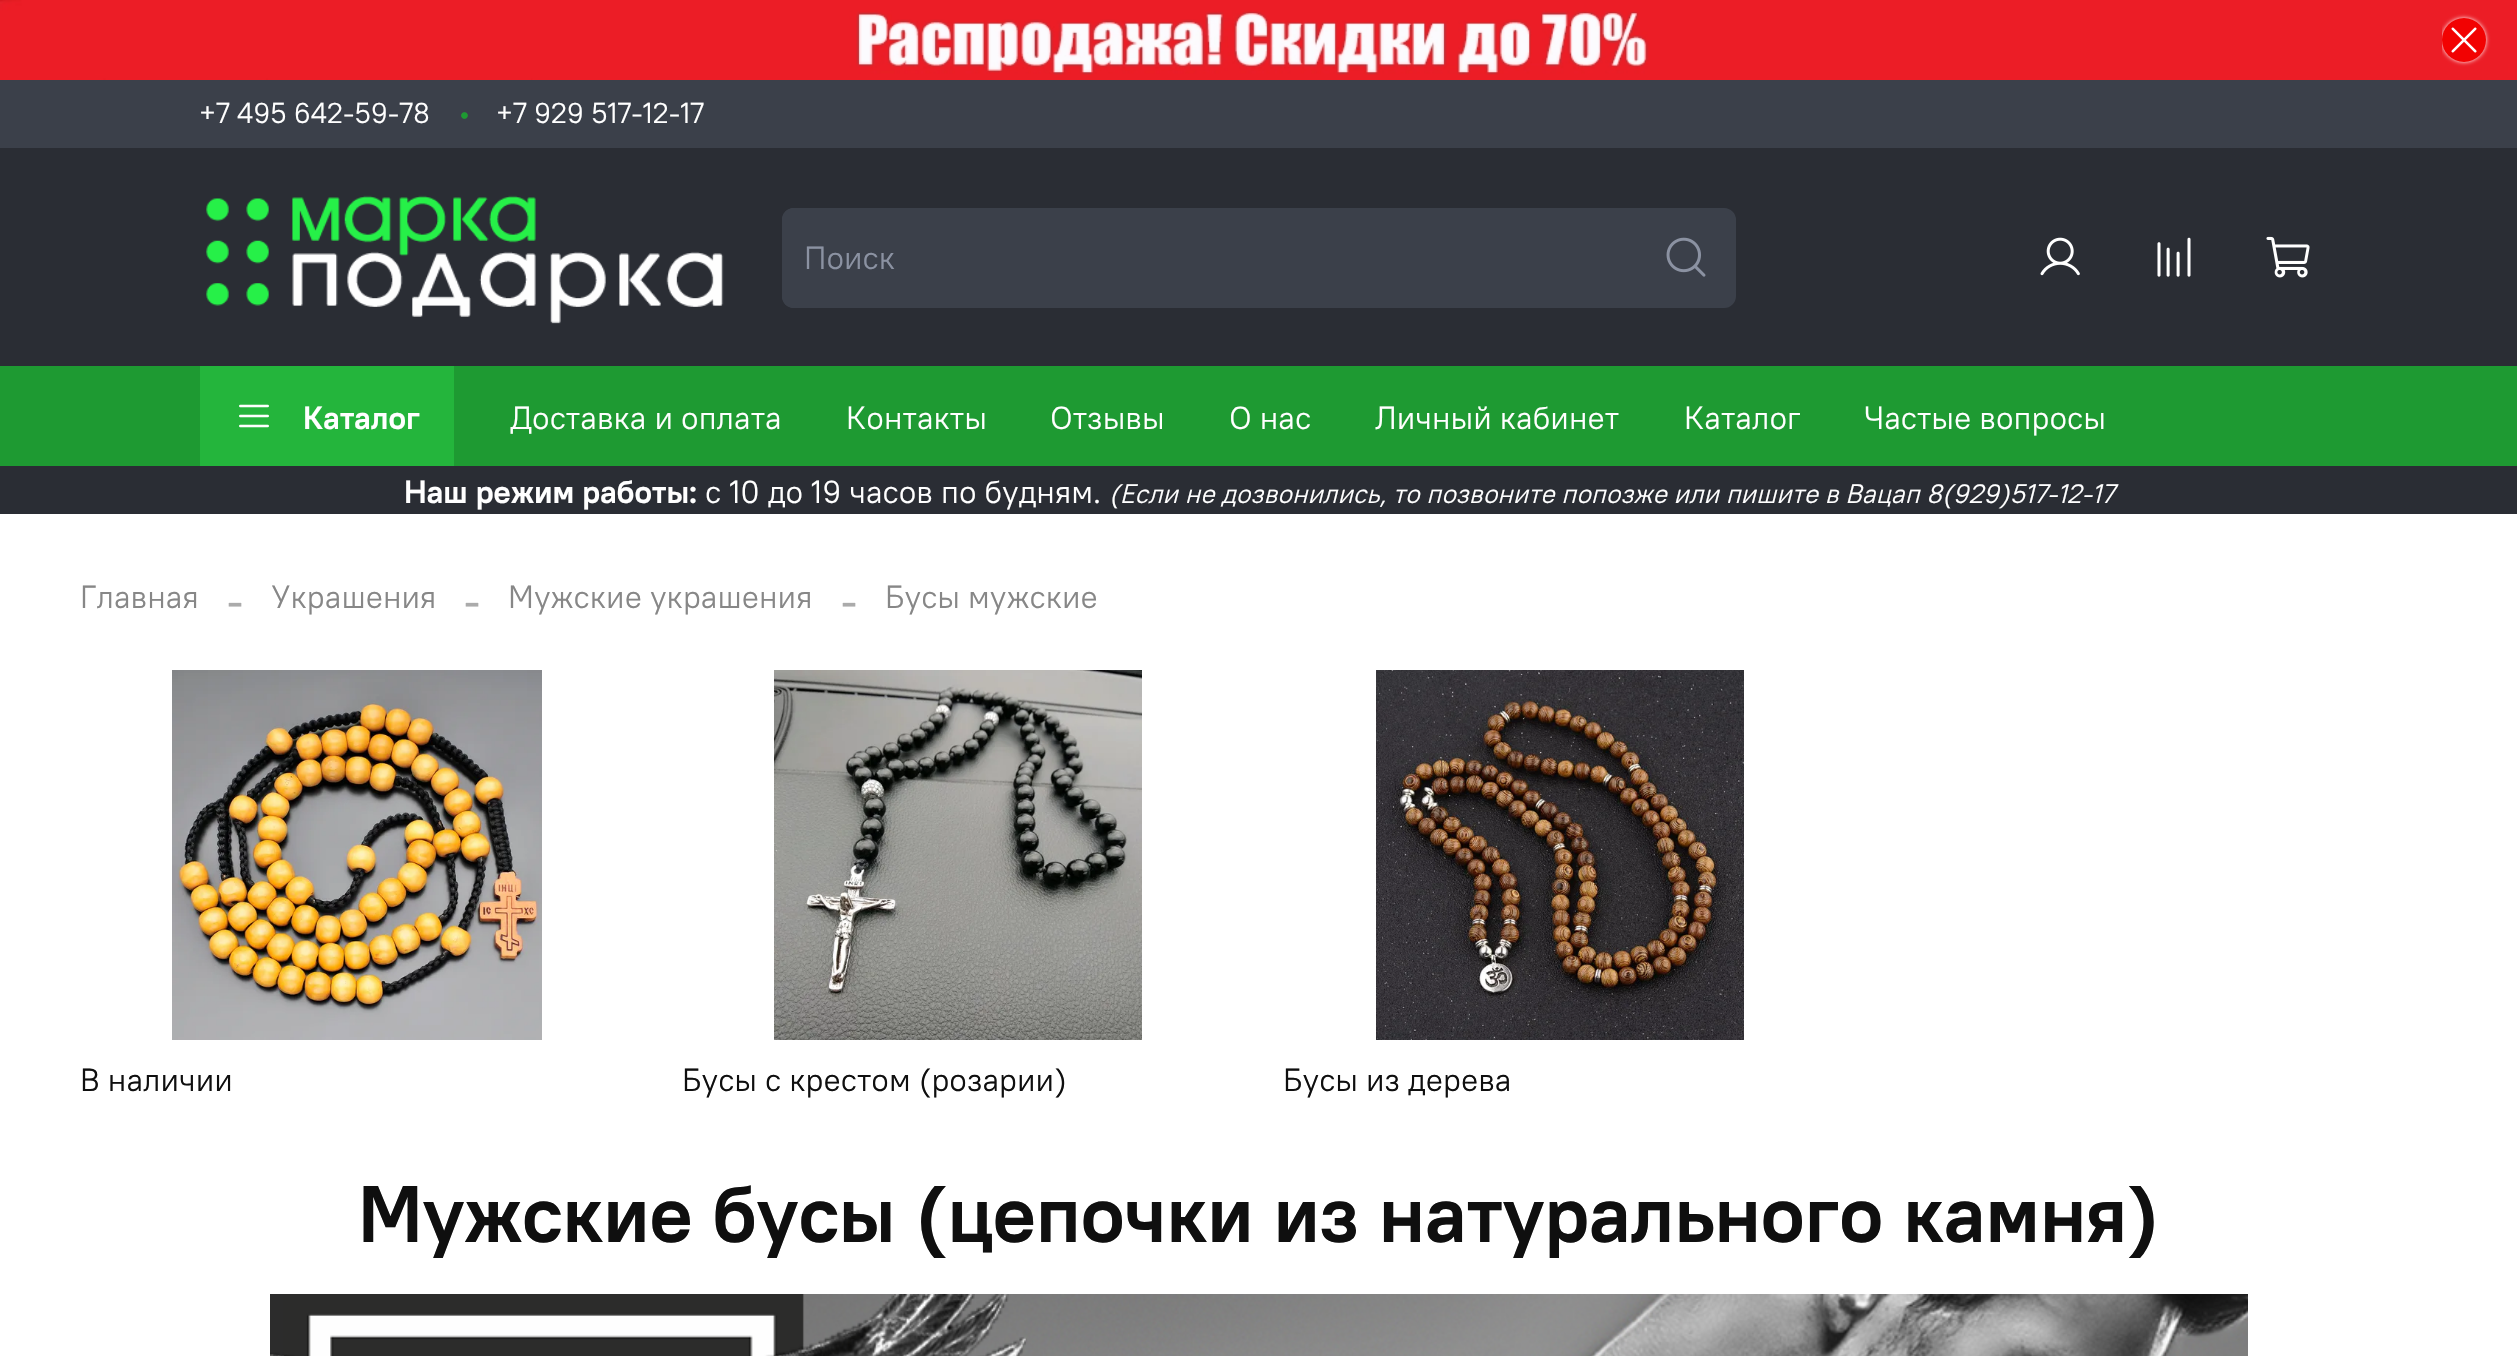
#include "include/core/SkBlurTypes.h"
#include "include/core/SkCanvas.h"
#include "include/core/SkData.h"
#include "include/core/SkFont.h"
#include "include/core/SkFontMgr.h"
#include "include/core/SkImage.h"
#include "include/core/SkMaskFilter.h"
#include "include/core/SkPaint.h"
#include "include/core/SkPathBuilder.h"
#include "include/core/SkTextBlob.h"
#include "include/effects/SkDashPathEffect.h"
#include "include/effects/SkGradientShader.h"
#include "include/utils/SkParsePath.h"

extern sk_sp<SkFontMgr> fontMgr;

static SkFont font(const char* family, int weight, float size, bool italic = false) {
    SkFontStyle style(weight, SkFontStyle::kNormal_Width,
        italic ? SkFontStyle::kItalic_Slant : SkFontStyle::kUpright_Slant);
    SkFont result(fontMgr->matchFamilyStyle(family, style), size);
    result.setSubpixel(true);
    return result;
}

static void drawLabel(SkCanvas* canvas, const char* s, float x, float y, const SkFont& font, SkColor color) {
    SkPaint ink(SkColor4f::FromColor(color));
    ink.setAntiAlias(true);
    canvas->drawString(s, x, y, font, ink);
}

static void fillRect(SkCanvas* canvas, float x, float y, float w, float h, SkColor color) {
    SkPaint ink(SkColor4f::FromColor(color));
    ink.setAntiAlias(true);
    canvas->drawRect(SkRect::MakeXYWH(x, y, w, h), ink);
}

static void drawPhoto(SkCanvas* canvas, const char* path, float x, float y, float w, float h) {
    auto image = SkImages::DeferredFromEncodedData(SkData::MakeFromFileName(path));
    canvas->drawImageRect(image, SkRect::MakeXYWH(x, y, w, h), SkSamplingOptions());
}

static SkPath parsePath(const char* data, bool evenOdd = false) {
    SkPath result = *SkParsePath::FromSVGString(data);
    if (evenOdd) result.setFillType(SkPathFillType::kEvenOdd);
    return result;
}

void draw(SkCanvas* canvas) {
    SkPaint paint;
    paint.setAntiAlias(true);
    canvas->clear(0xFFFFFFFF);
    drawPhoto(canvas, "assets/img1.png", 0, 0, 2517, 80);
    canvas->save();
    canvas->clipRect(SkRect::MakeXYWH(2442, 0, 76, 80));
    paint.setColor(0xFFFFFFFF);
    paint.setMaskFilter(SkMaskFilter::MakeBlur(kNormal_SkBlurStyle, 2));
    canvas->drawRoundRect(SkRect::MakeXYWH(2442, 18, 44, 44), 22, 22, paint);
    paint.setMaskFilter(nullptr);
    canvas->restore();
    paint.setColor(0xFFF20202);
    canvas->drawCircle(2464, 40, 22, paint);
    drawPhoto(canvas, "assets/img2.png", 2451, 27, 26, 26);
    fillRect(canvas, 0, 80, 2517, 68, 0xFF3B404A);
    SkFont font1 = font("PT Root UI", 400, 28.75f);
    drawLabel(canvas, "+7 495 642-59-78", 199, 123, font1, 0xFFFFFFFF);
    drawLabel(canvas, "•", 458, 123, font1, 0xFF1E9A32);
    drawLabel(canvas, "+7 929 517-12-17", 496, 123, font1, 0xFFFFFFFF);
    fillRect(canvas, 0, 148, 2517, 218, 0xFF2A2D34);
    drawPhoto(canvas, "assets/img3.png", 206, 195, 518, 129);
    paint.setColor(0xFF3B404A);
    canvas->drawPath(parsePath("M794 208H1636V308H794C787.5 308 782 302.5 782 296V220C782 213.5 787.5 208 794 208Z"), paint);
    canvas->drawPath(parsePath("M794 208H1636V308H794C787 308 782 303 782 296V220C782 213 787 208 794 208ZM794 210H1636V306H794C788 306 784 302 784 296V220C784 214 788 210 794 210Z", true), paint);
    SkFont font2 = font("PT Root UI", 400, 32);
    drawLabel(canvas, "Поиск", 804, 269, font2, 0xFF8B92A2);
    canvas->drawPath(parsePath("M1637 209H1724C1730 209 1735 214 1735 220V296C1735 302 1730 307 1724 307H1637Z"), paint);
    paint.setStroke(true);
    paint.setStrokeWidth(2);
    canvas->drawPath(parsePath("M1637 209H1724C1730 209 1735 214 1735 220V296C1735 302 1730 307 1724 307H1637Z"), paint);
    drawPhoto(canvas, "assets/img4.png", 1666, 237, 40, 40);
    drawPhoto(canvas, "assets/img5.png", 2040, 237, 40, 39);
    drawPhoto(canvas, "assets/img6.png", 2157, 237, 34, 40);
    drawPhoto(canvas, "assets/img7.png", 2266, 236, 44, 42);
    fillRect(canvas, 0, 366, 2517, 100, 0xFF1E9A32);
    fillRect(canvas, 200, 366, 254, 100, 0xFF24B53C);
    drawPhoto(canvas, "assets/img8.png", 239, 404, 30, 24);
    SkFont font3 = font("PT Root UI", 700, 32);
    drawLabel(canvas, "Каталог", 303, 429, font3, 0xFFFFFFFF);
    drawLabel(canvas, "Доставка и оплата", 510, 429, font2, 0xFFFFFFFF);
    drawLabel(canvas, "Контакты", 846, 429, font2, 0xFFFFFFFF);
    drawLabel(canvas, "Отзывы", 1050, 429, font2, 0xFFFFFFFF);
    drawLabel(canvas, "О нас", 1229, 429, font2, 0xFFFFFFFF);
    drawLabel(canvas, "Личный кабинет", 1375, 429, font2, 0xFFFFFFFF);
    drawLabel(canvas, "Каталог", 1684, 429, font2, 0xFFFFFFFF);
    drawLabel(canvas, "Частые вопросы", 1864, 429, font2, 0xFFFFFFFF);
    fillRect(canvas, 0, 466, 2517, 48, 0xFF2A2D34);
    drawLabel(canvas, "Наш режим работы:", 404, 503, font3, 0xFFFFFFFF);
    drawLabel(canvas, "с 10 до 19 часов по будням.", 705, 503, font2, 0xFFFFFFFF);
    SkFont font4 = font("PT Root UI", 400, 26.65f, true);
    drawLabel(canvas, "(Если не дозвонились, то позвоните попозже или пишите в Вацап 8(929)517-12-17", 1109, 503, font4, 0xFFFFFFFF);
    drawLabel(canvas, "Главная", 80, 608, font2, 0xFF878787);
    SkFont font5 = font("Liberation Serif", 400, 48);
    drawLabel(canvas, "-", 227, 616, font5, 0xFFABABAB);
    drawLabel(canvas, "Украшения", 271, 608, font2, 0xFF878787);
    drawLabel(canvas, "-", 464, 616, font5, 0xFFABABAB);
    drawLabel(canvas, "Мужские украшения", 508, 608, font2, 0xFF878787);
    drawLabel(canvas, "-", 841, 616, font5, 0xFFABABAB);
    drawLabel(canvas, "Бусы мужские", 885, 608, font2, 0xFF878787);
    drawPhoto(canvas, "assets/img9.png", 172, 670, 370, 370);
    drawLabel(canvas, "В наличии", 80, 1091, font2, 0xFF0F0F0F);
    drawPhoto(canvas, "assets/img10.png", 774, 670, 368, 370);
    drawLabel(canvas, "Бусы с крестом (розарии)", 682, 1091, font2, 0xFF0F0F0F);
    drawPhoto(canvas, "assets/img11.png", 1376, 670, 368, 370);
    drawLabel(canvas, "Бусы из дерева", 1283, 1091, font2, 0xFF0F0F0F);
    SkFont font6 = font("PT Root UI", 700, 80);
    drawLabel(canvas, "Мужские бусы (цепочки из натурального камня)", 358, 1242, font6, 0xFF0F0F0F);
    drawPhoto(canvas, "assets/img12.png", 270, 1294, 1978, 62);
}
